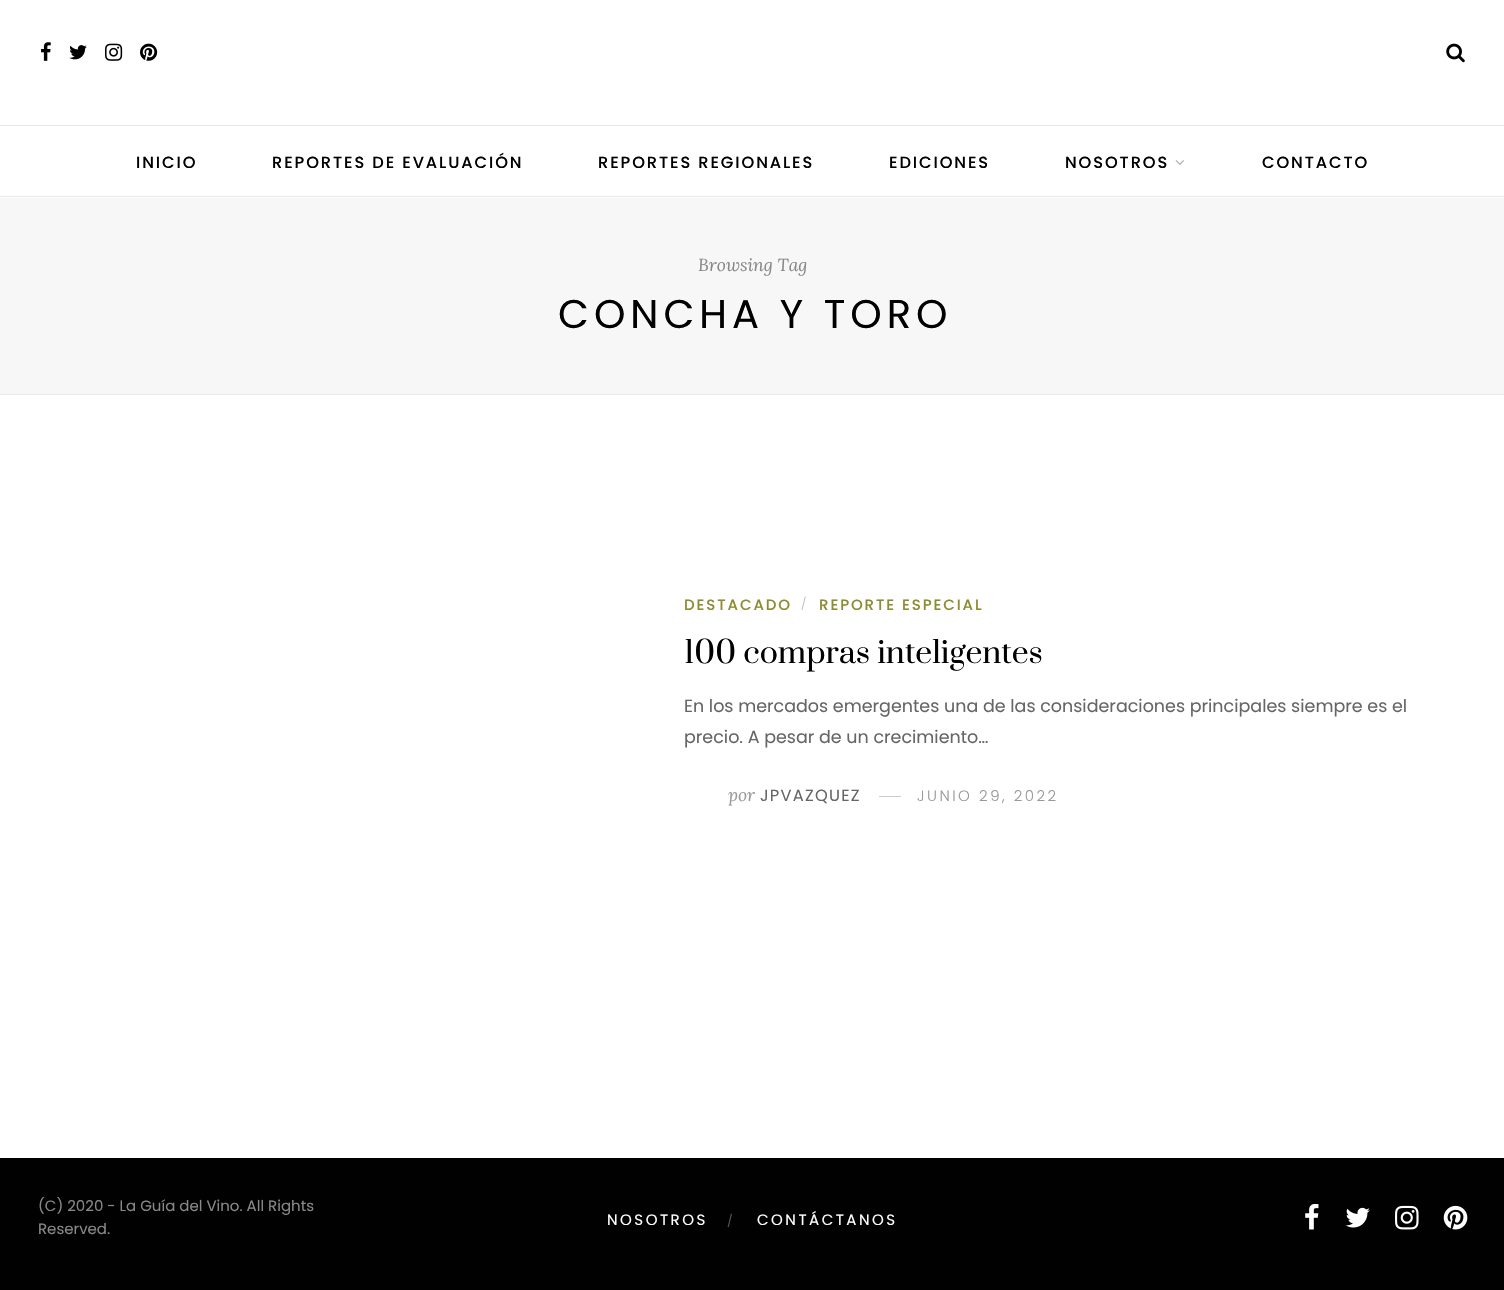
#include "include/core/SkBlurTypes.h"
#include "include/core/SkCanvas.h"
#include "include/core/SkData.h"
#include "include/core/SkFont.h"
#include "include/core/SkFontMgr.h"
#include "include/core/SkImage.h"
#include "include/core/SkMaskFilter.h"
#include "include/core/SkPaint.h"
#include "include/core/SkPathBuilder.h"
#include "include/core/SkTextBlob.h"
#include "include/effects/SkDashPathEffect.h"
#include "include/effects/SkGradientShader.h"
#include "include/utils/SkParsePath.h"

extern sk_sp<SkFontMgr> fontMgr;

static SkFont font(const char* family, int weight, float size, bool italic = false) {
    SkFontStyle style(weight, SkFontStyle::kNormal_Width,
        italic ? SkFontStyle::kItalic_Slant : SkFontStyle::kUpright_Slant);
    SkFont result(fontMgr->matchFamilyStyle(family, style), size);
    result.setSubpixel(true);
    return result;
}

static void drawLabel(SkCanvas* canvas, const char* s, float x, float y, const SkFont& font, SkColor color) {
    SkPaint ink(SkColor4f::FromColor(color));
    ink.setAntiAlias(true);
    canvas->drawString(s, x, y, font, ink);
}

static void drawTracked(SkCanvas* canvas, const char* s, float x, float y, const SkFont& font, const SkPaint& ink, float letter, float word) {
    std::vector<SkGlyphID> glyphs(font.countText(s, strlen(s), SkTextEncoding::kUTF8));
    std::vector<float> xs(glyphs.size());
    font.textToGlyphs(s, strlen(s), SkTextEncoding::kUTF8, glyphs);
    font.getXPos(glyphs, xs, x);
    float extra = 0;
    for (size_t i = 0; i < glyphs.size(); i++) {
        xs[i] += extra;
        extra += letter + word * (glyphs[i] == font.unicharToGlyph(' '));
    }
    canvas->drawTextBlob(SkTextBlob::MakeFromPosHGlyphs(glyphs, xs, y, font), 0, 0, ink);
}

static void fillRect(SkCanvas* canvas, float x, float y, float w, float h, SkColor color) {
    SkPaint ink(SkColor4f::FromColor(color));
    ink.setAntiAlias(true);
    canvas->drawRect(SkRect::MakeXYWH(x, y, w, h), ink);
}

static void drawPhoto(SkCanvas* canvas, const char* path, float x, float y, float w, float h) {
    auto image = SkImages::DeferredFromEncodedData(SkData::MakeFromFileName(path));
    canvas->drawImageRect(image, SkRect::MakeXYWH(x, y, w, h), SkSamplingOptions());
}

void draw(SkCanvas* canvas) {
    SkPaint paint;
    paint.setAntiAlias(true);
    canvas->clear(0xFFFFFFFF);
    drawPhoto(canvas, "assets/img1.png", 41, 42, 10, 19);
    drawPhoto(canvas, "assets/img2.png", 69, 45, 18, 15);
    drawPhoto(canvas, "assets/img3.png", 105, 43, 18, 18);
    drawPhoto(canvas, "assets/img4.png", 140, 43, 18, 18);
    drawPhoto(canvas, "assets/img5.png", 1446, 43, 19, 20);
    fillRect(canvas, 0, 125, 1504, 1, 0xFFE8E8E8);
    fillRect(canvas, 0, 196, 1504, 1, 0xFFE8E8E8);
    SkFont font1 = font("Poppins", 500, 16.25f);
    paint.setColor(0xFF000000);
    drawTracked(canvas, "INICIO", 136, 168, font1, paint, 1.9f, 0);
    drawTracked(canvas, "REPORTES DE EVALUACIÓN", 272, 168, font1, paint, 1.9f, 0);
    drawTracked(canvas, "REPORTES REGIONALES", 598, 168, font1, paint, 1.9f, 0);
    drawTracked(canvas, "EDICIONES", 889, 168, font1, paint, 1.9f, 0);
    drawTracked(canvas, "NOSOTROS", 1065, 168, font1, paint, 1.9f, 0);
    drawPhoto(canvas, "assets/img6.png", 1175, 160, 9, 5);
    drawTracked(canvas, "CONTACTO", 1262, 168, font1, paint, 1.9f, 0);
    fillRect(canvas, 0, 198, 1504, 196, 0xFFF7F7F7);
    fillRect(canvas, 0, 394, 1504, 1, 0xFFEAEAEA);
    SkFont font2 = font("Lora", 400, 17.5f, true);
    drawLabel(canvas, "Browsing Tag", 698, 271, font2, 0xFF888888);
    SkFont font3 = font("Poppins", 400, 40);
    drawTracked(canvas, "CONCHA Y TORO", 558, 328, font3, paint, 5, 0);
    SkFont font4 = font("Poppins", 500, 15);
    paint.setColor(0xFF8C8C30);
    drawTracked(canvas, "DESTACADO", 684, 610, font4, paint, 1.9f, 0);
    SkFont font5 = font("Poppins", 300, 12);
    paint.setColor(0xFFBBBBBB);
    drawTracked(canvas, "/", 801, 608, font5, paint, 2.5f, 0);
    paint.setColor(0xFF8C8C30);
    drawTracked(canvas, "REPORTE ESPECIAL", 819, 610, font4, paint, 1.9f, 0);
    SkFont font6 = font("Prata", 400, 30);
    drawLabel(canvas, "100 compras inteligentes", 684, 663, font6, 0xFF000000);
    SkFont font7 = font("Poppins", 400, 17.5f);
    drawLabel(canvas, "En los mercados emergentes una de las consideraciones principales siempre es el", 684, 712, font7, 0xFF666666);
    drawLabel(canvas, "precio. A pesar de un crecimiento…", 684, 743, font7, 0xFF666666);
    drawLabel(canvas, "por", 728, 801, font2, 0xFF999999);
    SkFont font8 = font("Poppins", 400, 16.25f);
    paint.setColor(0xFF666666);
    drawTracked(canvas, "JPVAZQUEZ", 760, 801, font8, paint, 1.25f, 0);
    fillRect(canvas, 879, 796, 22, 1, 0xFFCCCCCC);
    SkFont font9 = font("Poppins", 300, 15);
    paint.setColor(0xFF999999);
    drawTracked(canvas, "JUNIO 29, 2022", 917, 801, font9, paint, 2.5f, 0);
    fillRect(canvas, 0, 1158, 1504, 132, 0xFF010101);
    SkFont font10 = font("Poppins", 400, 15);
    drawLabel(canvas, "(C) 2020 - La Guía del Vino. All Rights", 38, 1211, font10, 0xFF888888);
    drawLabel(canvas, "Reserved.", 38, 1234, font10, 0xFF888888);
    paint.setColor(0xFFFFFFFF);
    drawTracked(canvas, "NOSOTROS", 607, 1225, font10, paint, 2.5f, 0);
    SkFont font11 = font("Poppins", 400, 12);
    drawLabel(canvas, "/", 727, 1225, font11, 0xFF555555);
    drawTracked(canvas, "CONTÁCTANOS", 757, 1225, font10, paint, 2.5f, 0);
    drawPhoto(canvas, "assets/img7.png", 1305, 1203, 14, 27);
    drawPhoto(canvas, "assets/img8.png", 1345, 1207, 25, 21);
    drawPhoto(canvas, "assets/img9.png", 1395, 1205, 24, 25);
    drawPhoto(canvas, "assets/img10.png", 1443, 1205, 25, 25);
}
